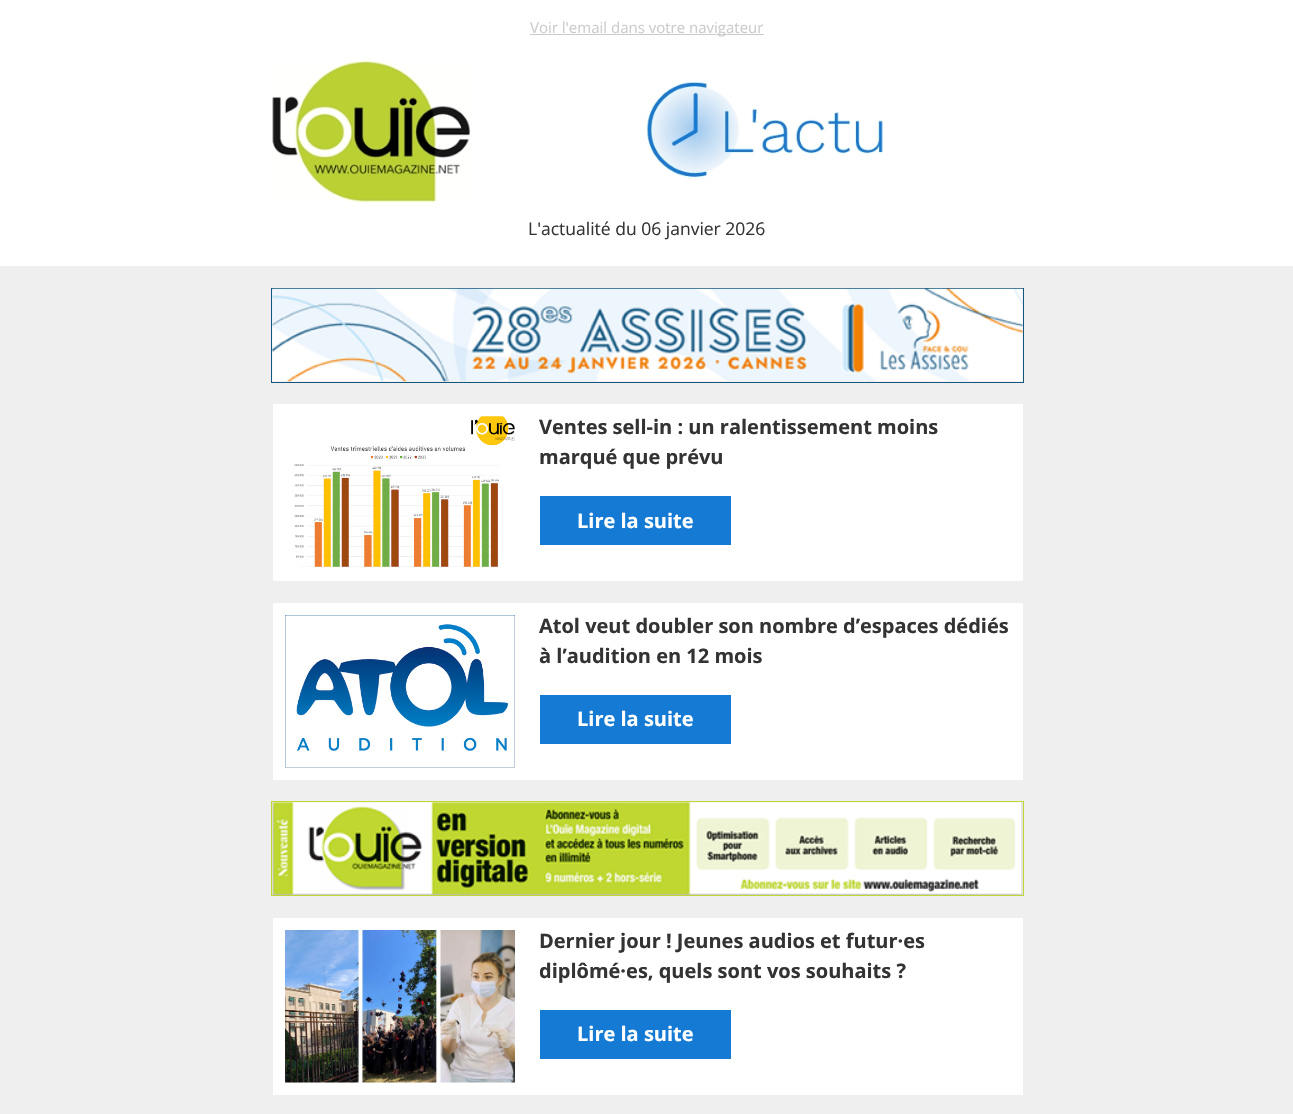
#include "include/core/SkBlurTypes.h"
#include "include/core/SkCanvas.h"
#include "include/core/SkData.h"
#include "include/core/SkFont.h"
#include "include/core/SkFontMgr.h"
#include "include/core/SkImage.h"
#include "include/core/SkMaskFilter.h"
#include "include/core/SkPaint.h"
#include "include/core/SkPathBuilder.h"
#include "include/core/SkTextBlob.h"
#include "include/effects/SkDashPathEffect.h"
#include "include/effects/SkGradientShader.h"
#include "include/utils/SkParsePath.h"

extern sk_sp<SkFontMgr> fontMgr;

static SkFont font(const char* family, int weight, float size, bool italic = false) {
    SkFontStyle style(weight, SkFontStyle::kNormal_Width,
        italic ? SkFontStyle::kItalic_Slant : SkFontStyle::kUpright_Slant);
    SkFont result(fontMgr->matchFamilyStyle(family, style), size);
    result.setSubpixel(true);
    return result;
}

static void drawLabel(SkCanvas* canvas, const char* s, float x, float y, const SkFont& font, SkColor color) {
    SkPaint ink(SkColor4f::FromColor(color));
    ink.setAntiAlias(true);
    canvas->drawString(s, x, y, font, ink);
}

static void fillRect(SkCanvas* canvas, float x, float y, float w, float h, SkColor color) {
    SkPaint ink(SkColor4f::FromColor(color));
    ink.setAntiAlias(true);
    canvas->drawRect(SkRect::MakeXYWH(x, y, w, h), ink);
}

static void drawPhoto(SkCanvas* canvas, const char* path, float x, float y, float w, float h) {
    auto image = SkImages::DeferredFromEncodedData(SkData::MakeFromFileName(path));
    canvas->drawImageRect(image, SkRect::MakeXYWH(x, y, w, h), SkSamplingOptions());
}

void draw(SkCanvas* canvas) {
    SkPaint paint;
    paint.setAntiAlias(true);
    canvas->clear(0xFFEFEFEF);
    fillRect(canvas, 0, 0, 1293, 266, 0xFFFFFFFF);
    fillRect(canvas, 530, 34, 234, 1, 0xFFCCCCCC);
    SkFont font1 = font("Open Sans", 400, 15);
    drawLabel(canvas, "Voir l'email dans votre navigateur", 530, 33, font1, 0xFFCCCCCC);
    drawPhoto(canvas, "assets/img1.png", 272, 61, 612, 142);
    SkFont font2 = font("Open Sans", 400, 17.5f);
    drawLabel(canvas, "L'actualité du 06 janvier 2026", 528, 235, font2, 0xFF333333);
    paint.setStroke(true);
    paint.setStrokeWidth(1);
    paint.setColor(0xFF12557E);
    canvas->drawRect(SkRect::MakeXYWH(271.5f, 288.5f, 752, 94), paint);
    drawPhoto(canvas, "assets/img2.png", 272, 288, 751, 94);
    fillRect(canvas, 273, 404, 750, 177, 0xFFFFFFFF);
    drawPhoto(canvas, "assets/img3.png", 294, 416, 221, 151);
    SkFont font3 = font("Open Sans", 700, 20);
    drawLabel(canvas, "Ventes sell-in : un ralentissement moins", 539, 434, font3, 0xFF333333);
    drawLabel(canvas, "marqué que prévu", 539, 464, font3, 0xFF333333);
    fillRect(canvas, 578, 509, 116, 23, 0xFF157AD4);
    paint.setStrokeWidth(13);
    paint.setColor(0xFF157AD4);
    canvas->drawRect(SkRect::MakeXYWH(546.5f, 502.5f, 178, 36), paint);
    fillRect(canvas, 694, 509, 24, 23, 0xFF157AD4);
    fillRect(canvas, 553, 509, 25, 23, 0xFF157AD4);
    drawLabel(canvas, "Lire la suite", 577, 528, font3, 0xFFFFFFFF);
    fillRect(canvas, 273, 603, 750, 177, 0xFFFFFFFF);
    drawPhoto(canvas, "assets/img4.png", 285, 615, 230, 153);
    drawLabel(canvas, "Atol veut doubler son nombre d’espaces dédiés", 539, 633, font3, 0xFF333333);
    drawLabel(canvas, "à l’audition en 12 mois", 539, 663, font3, 0xFF333333);
    fillRect(canvas, 578, 708, 116, 23, 0xFF157AD4);
    canvas->drawRect(SkRect::MakeXYWH(546.5f, 701.5f, 178, 36), paint);
    fillRect(canvas, 694, 708, 24, 23, 0xFF157AD4);
    fillRect(canvas, 553, 708, 25, 23, 0xFF157AD4);
    drawLabel(canvas, "Lire la suite", 577, 726, font3, 0xFFFFFFFF);
    paint.setStrokeWidth(1);
    paint.setColor(0xFFBFD730);
    canvas->drawRect(SkRect::MakeXYWH(271.5f, 801.5f, 752, 94), paint);
    drawPhoto(canvas, "assets/img5.png", 272, 802, 751, 93);
    fillRect(canvas, 273, 918, 750, 177, 0xFFFFFFFF);
    drawPhoto(canvas, "assets/img6.png", 285, 930, 230, 153);
    drawLabel(canvas, "Dernier jour ! Jeunes audios et futur·es", 539, 948, font3, 0xFF333333);
    drawLabel(canvas, "diplômé·es, quels sont vos souhaits ?", 539, 978, font3, 0xFF333333);
    fillRect(canvas, 578, 1023, 116, 23, 0xFF157AD4);
    paint.setStrokeWidth(13);
    paint.setColor(0xFF157AD4);
    canvas->drawRect(SkRect::MakeXYWH(546.5f, 1016.5f, 178, 36), paint);
    fillRect(canvas, 694, 1023, 24, 23, 0xFF157AD4);
    fillRect(canvas, 553, 1023, 25, 23, 0xFF157AD4);
    drawLabel(canvas, "Lire la suite", 577, 1041, font3, 0xFFFFFFFF);
}
